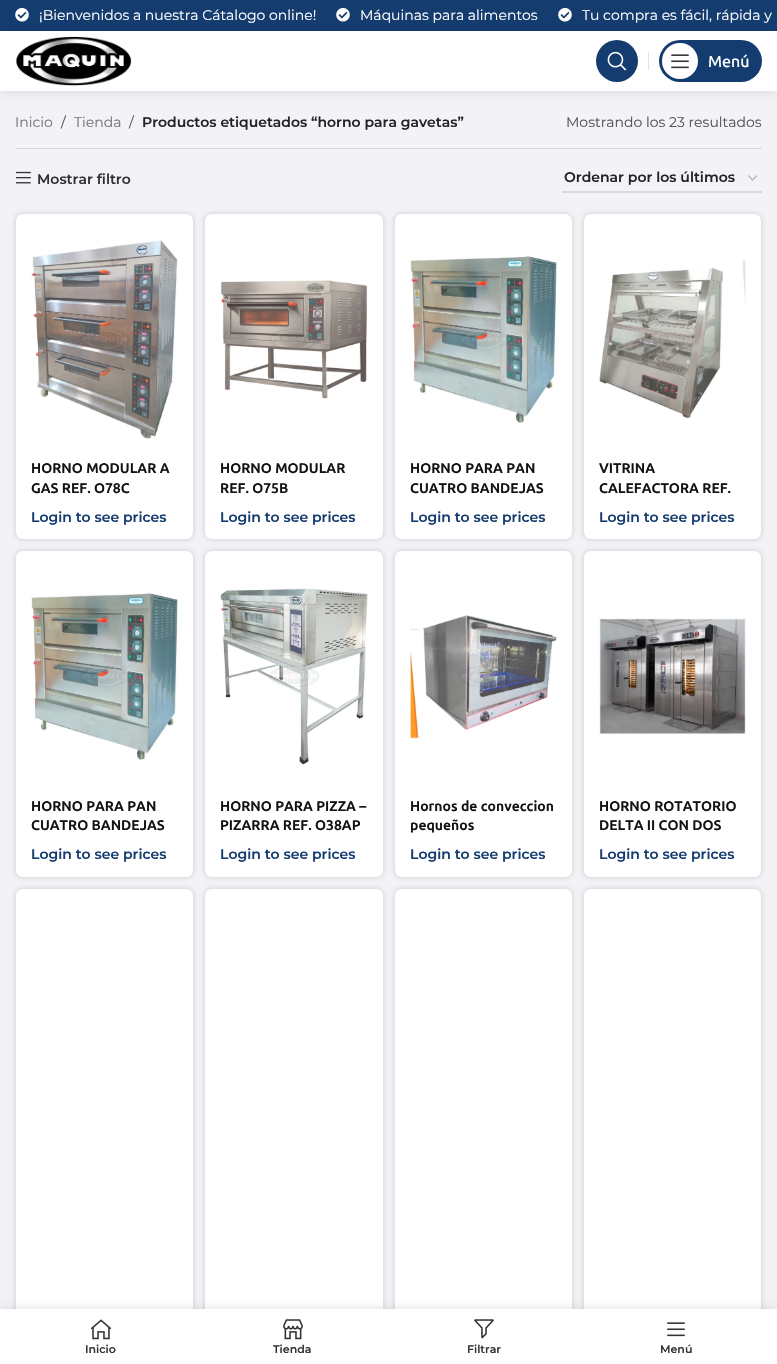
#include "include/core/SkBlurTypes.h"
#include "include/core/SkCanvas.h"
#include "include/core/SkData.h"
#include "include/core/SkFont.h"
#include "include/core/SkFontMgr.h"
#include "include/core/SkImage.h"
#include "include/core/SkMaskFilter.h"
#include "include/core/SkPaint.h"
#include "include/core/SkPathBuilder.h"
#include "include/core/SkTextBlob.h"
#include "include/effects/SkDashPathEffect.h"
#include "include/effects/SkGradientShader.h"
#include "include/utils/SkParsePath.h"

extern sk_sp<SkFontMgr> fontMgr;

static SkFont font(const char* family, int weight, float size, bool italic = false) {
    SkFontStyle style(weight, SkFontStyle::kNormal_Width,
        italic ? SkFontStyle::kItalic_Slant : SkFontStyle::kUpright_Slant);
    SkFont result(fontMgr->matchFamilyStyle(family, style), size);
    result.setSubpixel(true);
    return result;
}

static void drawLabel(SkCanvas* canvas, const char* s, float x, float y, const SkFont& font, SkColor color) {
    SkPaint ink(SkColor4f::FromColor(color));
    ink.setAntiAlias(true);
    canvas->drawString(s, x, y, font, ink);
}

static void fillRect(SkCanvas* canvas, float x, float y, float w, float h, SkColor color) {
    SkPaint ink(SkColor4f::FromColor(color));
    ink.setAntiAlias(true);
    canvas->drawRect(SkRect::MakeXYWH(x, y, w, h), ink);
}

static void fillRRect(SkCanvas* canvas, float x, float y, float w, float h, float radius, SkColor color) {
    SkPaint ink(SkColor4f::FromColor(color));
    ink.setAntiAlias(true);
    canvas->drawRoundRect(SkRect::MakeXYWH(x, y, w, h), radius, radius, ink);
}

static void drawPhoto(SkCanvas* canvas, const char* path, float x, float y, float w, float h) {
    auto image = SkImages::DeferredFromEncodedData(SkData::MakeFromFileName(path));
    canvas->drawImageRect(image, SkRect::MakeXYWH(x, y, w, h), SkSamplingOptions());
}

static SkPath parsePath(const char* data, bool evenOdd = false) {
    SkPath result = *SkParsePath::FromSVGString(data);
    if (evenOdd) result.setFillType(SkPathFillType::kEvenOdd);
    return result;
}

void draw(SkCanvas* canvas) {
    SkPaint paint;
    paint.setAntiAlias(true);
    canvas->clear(0xFFFFFFFF);
    fillRect(canvas, 0, 0, 777, 31, 0xFF153C6F);
    fillRect(canvas, 0, 91, 777, 1218, 0xFFF2F2F7);
    canvas->save();
    canvas->clipPath(parsePath("M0 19H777V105H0ZM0 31H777V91H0Z", true), true);
    paint.setColor(0x1A000000);
    paint.setMaskFilter(SkMaskFilter::MakeBlur(kNormal_SkBlurStyle, 4));
    canvas->drawRect(SkRect::MakeXYWH(0, 32, 777, 60), paint);
    paint.setMaskFilter(nullptr);
    canvas->restore();
    drawPhoto(canvas, "assets/img1.png", 15, 8, 14, 14);
    SkFont font1 = font("Montserrat", 400, 14);
    drawLabel(canvas, "¡Bienvenidos a nuestra Cátalogo online!", 39, 20, font1, 0xFFFFFFFF);
    drawPhoto(canvas, "assets/img1.png", 336, 8, 14, 14);
    drawLabel(canvas, "Máquinas para alimentos", 360, 20, font1, 0xFFFFFFFF);
    drawPhoto(canvas, "assets/img1.png", 558, 8, 14, 14);
    drawLabel(canvas, "Tu compra es fácil, rápida y", 582, 20, font1, 0xFFFFFFFF);
    drawPhoto(canvas, "assets/img2.png", 16, 36, 116, 50);
    paint.setColor(0xFF153C6F);
    canvas->drawCircle(617, 61, 21, paint);
    drawPhoto(canvas, "assets/img3.png", 607, 51, 20, 20);
    fillRect(canvas, 648, 52, 1, 18, 0xFFE4E4E4);
    fillRRect(canvas, 659, 40, 103, 42, 21, 0xFF153C6F);
    paint.setColor(0xFFFFFFFF);
    canvas->drawCircle(680, 61, 18, paint);
    drawPhoto(canvas, "assets/img4.png", 671, 54, 18, 15);
    SkFont font2 = font("Ubuntu", 500, 16);
    drawLabel(canvas, "Menú", 708, 67, font2, 0xFFFFFFFF);
    fillRect(canvas, 15, 148, 747, 1, 0xFFD8D8DD);
    drawLabel(canvas, "Inicio", 15, 127, font1, 0xFF767676);
    drawLabel(canvas, "/", 61, 127, font1, 0xFF545454);
    drawLabel(canvas, "Tienda", 74, 127, font1, 0xFF767676);
    drawLabel(canvas, "/", 129, 127, font1, 0xFF545454);
    SkFont font3 = font("Montserrat", 600, 14);
    drawLabel(canvas, "Productos etiquetados “horno para gavetas”", 142, 127, font3, 0xFF242424);
    drawLabel(canvas, "Mostrando los 23 resultados", 566, 127, font1, 0xFF545454);
    drawPhoto(canvas, "assets/img5.png", 16, 171, 15, 13);
    drawLabel(canvas, "Mostrar filtro", 37, 184, font3, 0xFF333333);
    paint.setStroke(true);
    paint.setStrokeWidth(1.4f);
    paint.setColor(0xFFBBBBBB);
    canvas->drawPath(parsePath("M748.5 175.5L752.5 180L757 175.5"), paint);
    fillRect(canvas, 562, 191, 200, 2, 0xFFDADADE);
    drawLabel(canvas, "Ordenar por los últimos", 564, 182, font3, 0xFF242424);
    paint.setStroke(false);
    paint.setColor(0x1F000000);
    paint.setMaskFilter(SkMaskFilter::MakeBlur(kNormal_SkBlurStyle, 2));
    canvas->drawRoundRect(SkRect::MakeXYWH(15, 213, 179, 327), 8, 8, paint);
    paint.setMaskFilter(nullptr);
    fillRRect(canvas, 15, 213, 179, 327, 8, 0xFFFFFFFF);
    paint.setStroke(true);
    paint.setStrokeWidth(1);
    paint.setColor(0x1C000000);
    canvas->drawRoundRect(SkRect::MakeXYWH(15.5f, 213.5f, 178, 326), 7.5f, 7.5f, paint);
    drawPhoto(canvas, "assets/img6.png", 31, 240, 147, 199);
    SkFont font4 = font("Ubuntu", 700, 14);
    drawLabel(canvas, "HORNO MODULAR A", 31, 473, font4, 0xFF131313);
    drawLabel(canvas, "GAS REF. O78C", 31, 493, font4, 0xFF131313);
    drawLabel(canvas, "Login to see prices", 31, 522, font3, 0xFF153C6F);
    paint.setStroke(false);
    paint.setColor(0x1F000000);
    paint.setMaskFilter(SkMaskFilter::MakeBlur(kNormal_SkBlurStyle, 2));
    canvas->drawRoundRect(SkRect::MakeXYWH(204, 213, 180, 327), 8, 8, paint);
    paint.setMaskFilter(nullptr);
    fillRRect(canvas, 204, 213, 180, 327, 8, 0xFFFFFFFF);
    paint.setStroke(true);
    paint.setColor(0x1C000000);
    canvas->drawRoundRect(SkRect::MakeXYWH(204.5f, 213.5f, 179, 326), 7.5f, 7.5f, paint);
    drawPhoto(canvas, "assets/img7.png", 220, 280, 148, 119);
    drawLabel(canvas, "HORNO MODULAR", 220, 473, font4, 0xFF131313);
    drawLabel(canvas, "REF. O75B", 220, 493, font4, 0xFF131313);
    drawLabel(canvas, "Login to see prices", 220, 522, font3, 0xFF153C6F);
    paint.setStroke(false);
    paint.setColor(0x1F000000);
    paint.setMaskFilter(SkMaskFilter::MakeBlur(kNormal_SkBlurStyle, 2));
    canvas->drawRoundRect(SkRect::MakeXYWH(394, 213, 179, 327), 8, 8, paint);
    paint.setMaskFilter(nullptr);
    fillRRect(canvas, 394, 213, 179, 327, 8, 0xFFFFFFFF);
    paint.setStroke(true);
    paint.setColor(0x1C000000);
    canvas->drawRoundRect(SkRect::MakeXYWH(394.5f, 213.5f, 178, 326), 7.5f, 7.5f, paint);
    drawPhoto(canvas, "assets/img8.png", 410, 256, 147, 167);
    drawLabel(canvas, "HORNO PARA PAN", 410, 473, font4, 0xFF131313);
    drawLabel(canvas, "CUATRO BANDEJAS", 410, 493, font4, 0xFF131313);
    drawLabel(canvas, "Login to see prices", 410, 522, font3, 0xFF153C6F);
    paint.setStroke(false);
    paint.setColor(0x1F000000);
    paint.setMaskFilter(SkMaskFilter::MakeBlur(kNormal_SkBlurStyle, 2));
    canvas->drawRoundRect(SkRect::MakeXYWH(583, 213, 179, 327), 8, 8, paint);
    paint.setMaskFilter(nullptr);
    fillRRect(canvas, 583, 213, 179, 327, 8, 0xFFFFFFFF);
    paint.setStroke(true);
    paint.setColor(0x1C000000);
    canvas->drawRoundRect(SkRect::MakeXYWH(583.5f, 213.5f, 178, 326), 7.5f, 7.5f, paint);
    drawPhoto(canvas, "assets/img9.png", 599, 260, 147, 159);
    drawLabel(canvas, "VITRINA", 599, 473, font4, 0xFF131313);
    drawLabel(canvas, "CALEFACTORA REF.", 599, 493, font4, 0xFF131313);
    drawLabel(canvas, "Login to see prices", 599, 522, font3, 0xFF153C6F);
    paint.setStroke(false);
    paint.setColor(0x1F000000);
    paint.setMaskFilter(SkMaskFilter::MakeBlur(kNormal_SkBlurStyle, 2));
    canvas->drawRoundRect(SkRect::MakeXYWH(15, 550, 179, 328), 8, 8, paint);
    paint.setMaskFilter(nullptr);
    fillRRect(canvas, 15, 550, 179, 328, 8, 0xFFFFFFFF);
    paint.setStroke(true);
    paint.setColor(0x1C000000);
    canvas->drawRoundRect(SkRect::MakeXYWH(15.5f, 550.5f, 178, 327), 7.5f, 7.5f, paint);
    drawPhoto(canvas, "assets/img10.png", 31, 593, 147, 167);
    drawLabel(canvas, "HORNO PARA PAN", 31, 811, font4, 0xFF131313);
    drawLabel(canvas, "CUATRO BANDEJAS", 31, 830, font4, 0xFF131313);
    drawLabel(canvas, "Login to see prices", 31, 859, font3, 0xFF153C6F);
    paint.setStroke(false);
    paint.setColor(0x1F000000);
    paint.setMaskFilter(SkMaskFilter::MakeBlur(kNormal_SkBlurStyle, 2));
    canvas->drawRoundRect(SkRect::MakeXYWH(204, 550, 180, 328), 8, 8, paint);
    paint.setMaskFilter(nullptr);
    fillRRect(canvas, 204, 550, 180, 328, 8, 0xFFFFFFFF);
    paint.setStroke(true);
    paint.setColor(0x1C000000);
    canvas->drawRoundRect(SkRect::MakeXYWH(204.5f, 550.5f, 179, 327), 7.5f, 7.5f, paint);
    drawPhoto(canvas, "assets/img11.png", 220, 588, 148, 177);
    drawLabel(canvas, "HORNO PARA PIZZA –", 220, 811, font4, 0xFF131313);
    drawLabel(canvas, "PIZARRA REF. O38AP", 220, 830, font4, 0xFF131313);
    drawLabel(canvas, "Login to see prices", 220, 859, font3, 0xFF153C6F);
    paint.setStroke(false);
    paint.setColor(0x1F000000);
    paint.setMaskFilter(SkMaskFilter::MakeBlur(kNormal_SkBlurStyle, 2));
    canvas->drawRoundRect(SkRect::MakeXYWH(394, 550, 179, 328), 8, 8, paint);
    paint.setMaskFilter(nullptr);
    fillRRect(canvas, 394, 550, 179, 328, 8, 0xFFFFFFFF);
    paint.setStroke(true);
    paint.setColor(0x1C000000);
    canvas->drawRoundRect(SkRect::MakeXYWH(394.5f, 550.5f, 178, 327), 7.5f, 7.5f, paint);
    drawPhoto(canvas, "assets/img12.png", 410, 615, 147, 124);
    drawLabel(canvas, "Hornos de conveccion", 410, 811, font4, 0xFF131313);
    drawLabel(canvas, "pequeños", 410, 830, font4, 0xFF131313);
    drawLabel(canvas, "Login to see prices", 410, 859, font3, 0xFF153C6F);
    paint.setStroke(false);
    paint.setColor(0x1F000000);
    paint.setMaskFilter(SkMaskFilter::MakeBlur(kNormal_SkBlurStyle, 2));
    canvas->drawRoundRect(SkRect::MakeXYWH(583, 550, 179, 328), 8, 8, paint);
    paint.setMaskFilter(nullptr);
    fillRRect(canvas, 583, 550, 179, 328, 8, 0xFFFFFFFF);
    paint.setStroke(true);
    paint.setColor(0x1C000000);
    canvas->drawRoundRect(SkRect::MakeXYWH(583.5f, 550.5f, 178, 327), 7.5f, 7.5f, paint);
    drawPhoto(canvas, "assets/img13.png", 599, 618, 147, 116);
    drawLabel(canvas, "HORNO ROTATORIO", 599, 811, font4, 0xFF131313);
    drawLabel(canvas, "DELTA II CON DOS", 599, 830, font4, 0xFF131313);
    drawLabel(canvas, "Login to see prices", 599, 859, font3, 0xFF153C6F);
    paint.setStroke(false);
    paint.setColor(0x1F000000);
    paint.setMaskFilter(SkMaskFilter::MakeBlur(kNormal_SkBlurStyle, 2));
    canvas->drawRoundRect(SkRect::MakeXYWH(15, 888, 179, 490), 8, 8, paint);
    paint.setMaskFilter(nullptr);
    fillRRect(canvas, 15, 888, 179, 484, 8, 0xFFFFFFFF);
    paint.setStroke(true);
    paint.setColor(0x1C000000);
    canvas->drawRoundRect(SkRect::MakeXYWH(15.5f, 888.5f, 178, 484), 7.5f, 7.5f, paint);
    paint.setStroke(false);
    paint.setColor(0x1F000000);
    paint.setMaskFilter(SkMaskFilter::MakeBlur(kNormal_SkBlurStyle, 2));
    canvas->drawRoundRect(SkRect::MakeXYWH(204, 888, 180, 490), 8, 8, paint);
    paint.setMaskFilter(nullptr);
    fillRRect(canvas, 204, 888, 180, 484, 8, 0xFFFFFFFF);
    paint.setStroke(true);
    paint.setColor(0x1C000000);
    canvas->drawRoundRect(SkRect::MakeXYWH(204.5f, 888.5f, 179, 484), 7.5f, 7.5f, paint);
    paint.setStroke(false);
    paint.setColor(0x1F000000);
    paint.setMaskFilter(SkMaskFilter::MakeBlur(kNormal_SkBlurStyle, 2));
    canvas->drawRoundRect(SkRect::MakeXYWH(394, 888, 179, 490), 8, 8, paint);
    paint.setMaskFilter(nullptr);
    fillRRect(canvas, 394, 888, 179, 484, 8, 0xFFFFFFFF);
    paint.setStroke(true);
    paint.setColor(0x1C000000);
    canvas->drawRoundRect(SkRect::MakeXYWH(394.5f, 888.5f, 178, 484), 7.5f, 7.5f, paint);
    paint.setStroke(false);
    paint.setColor(0x1F000000);
    paint.setMaskFilter(SkMaskFilter::MakeBlur(kNormal_SkBlurStyle, 2));
    canvas->drawRoundRect(SkRect::MakeXYWH(583, 888, 179, 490), 8, 8, paint);
    paint.setMaskFilter(nullptr);
    fillRRect(canvas, 583, 888, 179, 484, 8, 0xFFFFFFFF);
    paint.setStroke(true);
    paint.setColor(0x1C000000);
    canvas->drawRoundRect(SkRect::MakeXYWH(583.5f, 888.5f, 178, 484), 7.5f, 7.5f, paint);
    paint.setStroke(false);
    paint.setColor(0x1F000000);
    paint.setMaskFilter(SkMaskFilter::MakeBlur(kNormal_SkBlurStyle, 4.5f));
    canvas->drawRect(SkRect::MakeXYWH(0, 1309, 777, 55), paint);
    paint.setMaskFilter(nullptr);
    fillRect(canvas, 0, 1309, 777, 55, 0xFFFFFFFF);
    drawPhoto(canvas, "assets/img14.png", 91, 1319, 20, 21);
    SkFont font5 = font("Montserrat", 600, 11);
    drawLabel(canvas, "Inicio", 85, 1353, font5, 0xFF333333);
    drawPhoto(canvas, "assets/img15.png", 283, 1319, 20, 21);
    drawLabel(canvas, "Tienda", 273, 1353, font5, 0xFF333333);
    drawPhoto(canvas, "assets/img16.png", 474, 1319, 20, 20);
    drawLabel(canvas, "Filtrar", 467, 1353, font5, 0xFF333333);
    drawPhoto(canvas, "assets/img4.png", 667, 1322, 18, 15);
    drawLabel(canvas, "Menú", 660, 1353, font5, 0xFF333333);
}
